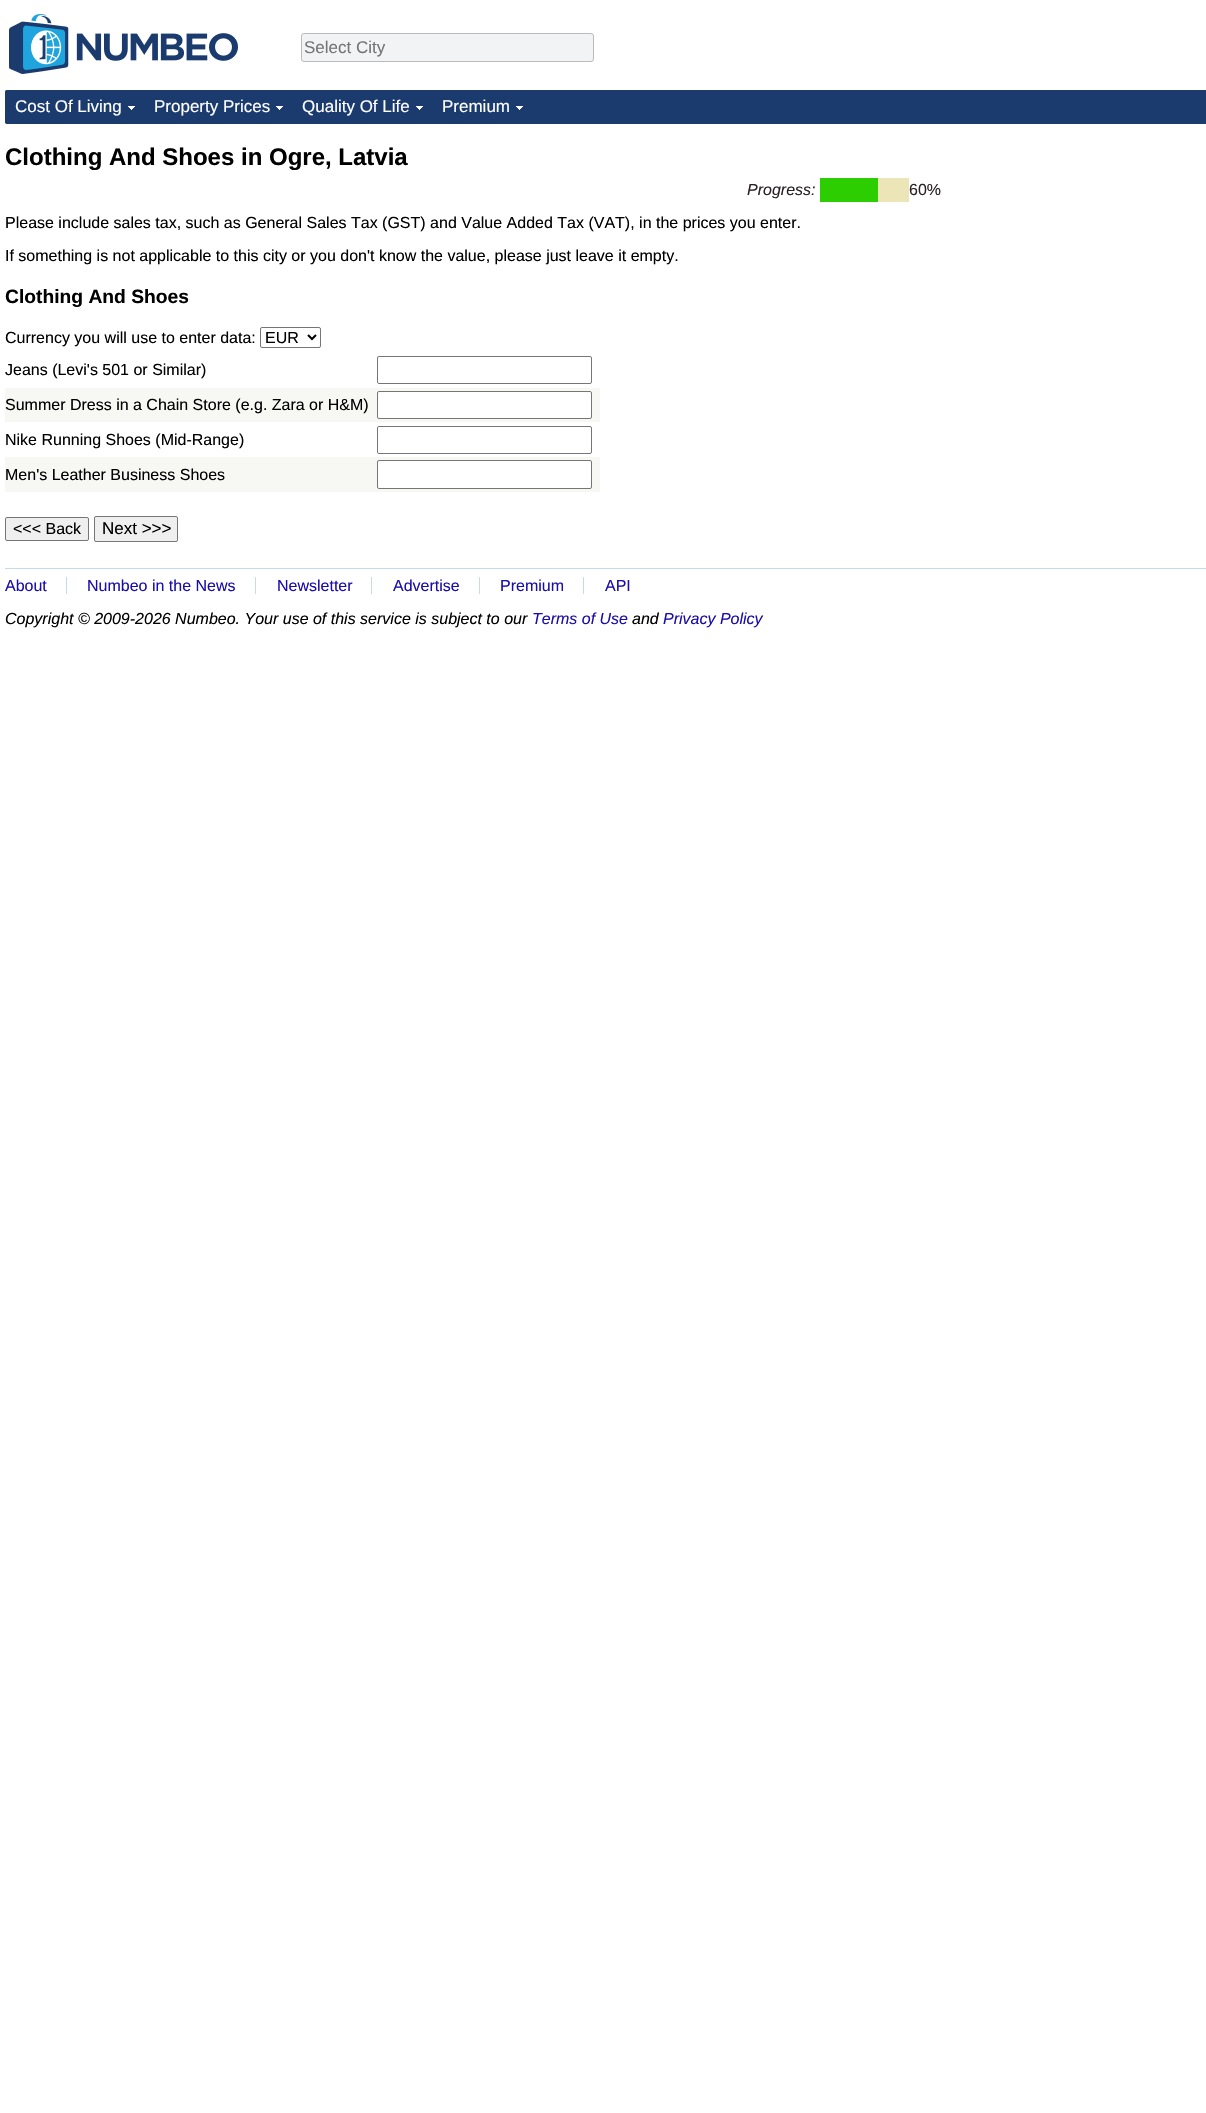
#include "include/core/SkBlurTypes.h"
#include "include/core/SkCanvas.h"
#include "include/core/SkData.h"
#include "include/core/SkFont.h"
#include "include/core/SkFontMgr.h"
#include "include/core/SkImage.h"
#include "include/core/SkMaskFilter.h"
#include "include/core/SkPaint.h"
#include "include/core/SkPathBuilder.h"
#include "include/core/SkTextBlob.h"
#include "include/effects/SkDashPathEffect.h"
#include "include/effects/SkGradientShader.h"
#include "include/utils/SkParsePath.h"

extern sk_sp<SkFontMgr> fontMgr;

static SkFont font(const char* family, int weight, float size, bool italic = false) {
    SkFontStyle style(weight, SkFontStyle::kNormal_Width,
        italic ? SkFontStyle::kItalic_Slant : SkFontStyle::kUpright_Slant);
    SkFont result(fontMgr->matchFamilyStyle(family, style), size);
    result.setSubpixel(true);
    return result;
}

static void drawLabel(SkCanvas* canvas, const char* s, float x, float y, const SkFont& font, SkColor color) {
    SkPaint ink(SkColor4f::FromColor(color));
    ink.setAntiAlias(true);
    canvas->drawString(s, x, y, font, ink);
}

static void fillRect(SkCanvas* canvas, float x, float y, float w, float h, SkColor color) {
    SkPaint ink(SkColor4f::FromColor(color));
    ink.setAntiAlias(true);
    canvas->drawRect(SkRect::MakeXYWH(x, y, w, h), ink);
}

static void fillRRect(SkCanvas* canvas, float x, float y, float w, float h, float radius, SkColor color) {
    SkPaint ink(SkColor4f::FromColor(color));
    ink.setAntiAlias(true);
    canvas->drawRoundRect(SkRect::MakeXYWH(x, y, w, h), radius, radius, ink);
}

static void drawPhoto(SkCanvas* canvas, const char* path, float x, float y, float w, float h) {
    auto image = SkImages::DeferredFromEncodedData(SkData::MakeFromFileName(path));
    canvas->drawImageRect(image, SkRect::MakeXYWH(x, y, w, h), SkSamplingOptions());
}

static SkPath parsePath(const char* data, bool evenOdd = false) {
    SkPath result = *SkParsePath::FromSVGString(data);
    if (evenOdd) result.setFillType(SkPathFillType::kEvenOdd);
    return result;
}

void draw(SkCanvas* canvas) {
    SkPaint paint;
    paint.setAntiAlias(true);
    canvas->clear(0xFFFFFFFF);
    drawPhoto(canvas, "assets/img1.png", 9, 14, 229, 60);
    paint.setColor(0xFFF1F3F4);
    canvas->drawRoundRect(SkRect::MakeXYWH(301.5f, 33.5f, 292, 28), 2.5f, 2.5f, paint);
    paint.setStroke(true);
    paint.setStrokeWidth(1);
    paint.setColor(0xFFBBBBBB);
    canvas->drawRoundRect(SkRect::MakeXYWH(301.5f, 33.5f, 292, 28), 2.5f, 2.5f, paint);
    SkFont font1 = font("Liberation Sans", 400, 17);
    drawLabel(canvas, "Select City", 304, 53, font1, 0xFF757575);
    fillRRect(canvas, 5, 90, 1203, 34, 2, 0xFF1B3B6F);
    fillRRect(canvas, 5, 90, 139, 34, 3, 0xFF1B3B6F);
    drawPhoto(canvas, "assets/img2.png", 128, 106, 7, 4);
    drawLabel(canvas, "Cost Of Living", 15, 112, font1, 0xFFFFFFFF);
    drawPhoto(canvas, "assets/img2.png", 276, 106, 7, 4);
    drawLabel(canvas, "Property Prices", 154, 112, font1, 0xFFFFFFFF);
    drawPhoto(canvas, "assets/img2.png", 416, 106, 7, 4);
    drawLabel(canvas, "Quality Of Life", 302, 112, font1, 0xFFFFFFFF);
    drawPhoto(canvas, "assets/img2.png", 516, 106, 7, 4);
    drawLabel(canvas, "Premium", 442, 112, font1, 0xFFFFFFFF);
    SkFont font2 = font("Liberation Sans", 700, 24);
    drawLabel(canvas, "Clothing And Shoes in Ogre, Latvia", 5, 165, font2, 0xFF000000);
    SkFont font3 = font("Liberation Sans", 400, 16, true);
    drawLabel(canvas, "Progress:", 747, 195, font3, 0xFF2A2026);
    fillRect(canvas, 820, 178, 58, 24, 0xFF2CCE01);
    fillRect(canvas, 878, 178, 31, 24, 0xFFECE5B8);
    SkFont font4 = font("Liberation Sans", 400, 16);
    drawLabel(canvas, "60%", 909, 195, font4, 0xFF2A2026);
    drawLabel(canvas, "Please include sales tax, such as General Sales Tax (GST) and Value Added Tax (VAT), in the prices you enter.", 5, 228, font4, 0xFF000000);
    drawLabel(canvas, "If something is not applicable to this city or you don't know the value, please just leave it empty.", 5, 261, font4, 0xFF000000);
    SkFont font5 = font("Liberation Sans", 700, 19.25f);
    drawLabel(canvas, "Clothing And Shoes", 5, 303, font5, 0xFF000000);
    drawLabel(canvas, "Currency you will use to enter data:", 5, 343, font4, 0xFF000000);
    paint.setColor(0xFF767676);
    canvas->drawRoundRect(SkRect::MakeXYWH(260.5f, 327.5f, 60, 20), 1.5f, 1.5f, paint);
    paint.setStrokeWidth(2);
    paint.setColor(0xFF000000);
    canvas->drawPath(parsePath("M308 335L312 339L316 335"), paint);
    drawLabel(canvas, "EUR", 265, 343, font4, 0xFF000000);
    drawLabel(canvas, "Jeans (Levi's 501 or Similar)", 5, 375, font4, 0xFF000000);
    paint.setStrokeWidth(1);
    paint.setColor(0xFF767676);
    canvas->drawRoundRect(SkRect::MakeXYWH(377.5f, 356.5f, 214, 27), 1.5f, 1.5f, paint);
    fillRect(canvas, 5, 388, 595, 34, 0xFFF7F7F3);
    drawLabel(canvas, "Summer Dress in a Chain Store (e.g. Zara or H&M)", 5, 410, font4, 0xFF000000);
    paint.setStroke(false);
    paint.setColor(0xFFFFFFFF);
    canvas->drawRoundRect(SkRect::MakeXYWH(377.5f, 391.5f, 214, 27), 1.5f, 1.5f, paint);
    paint.setStroke(true);
    paint.setColor(0xFF767676);
    canvas->drawRoundRect(SkRect::MakeXYWH(377.5f, 391.5f, 214, 27), 1.5f, 1.5f, paint);
    drawLabel(canvas, "Nike Running Shoes (Mid-Range)", 5, 445, font4, 0xFF000000);
    canvas->drawRoundRect(SkRect::MakeXYWH(377.5f, 426.5f, 214, 27), 1.5f, 1.5f, paint);
    fillRect(canvas, 5, 457, 595, 35, 0xFFF7F7F3);
    drawLabel(canvas, "Men's Leather Business Shoes", 5, 480, font4, 0xFF000000);
    paint.setStroke(false);
    paint.setColor(0xFFFFFFFF);
    canvas->drawRoundRect(SkRect::MakeXYWH(377.5f, 460.5f, 214, 28), 1.5f, 1.5f, paint);
    paint.setStroke(true);
    paint.setColor(0xFF767676);
    canvas->drawRoundRect(SkRect::MakeXYWH(377.5f, 460.5f, 214, 28), 1.5f, 1.5f, paint);
    paint.setStroke(false);
    paint.setColor(0xFFEFEFEF);
    canvas->drawRoundRect(SkRect::MakeXYWH(5.5f, 517.5f, 83, 23), 1.5f, 1.5f, paint);
    paint.setStroke(true);
    paint.setColor(0xFF767676);
    canvas->drawRoundRect(SkRect::MakeXYWH(5.5f, 517.5f, 83, 23), 1.5f, 1.5f, paint);
    drawLabel(canvas, "<<< Back", 13, 534, font4, 0xFF000000);
    paint.setStroke(false);
    paint.setColor(0xFFEFEFEF);
    canvas->drawRoundRect(SkRect::MakeXYWH(94.5f, 516.5f, 83, 25), 1.5f, 1.5f, paint);
    paint.setStroke(true);
    paint.setColor(0xFF767676);
    canvas->drawRoundRect(SkRect::MakeXYWH(94.5f, 516.5f, 83, 25), 1.5f, 1.5f, paint);
    drawLabel(canvas, "Next >>>", 102, 534, font1, 0xFF000000);
    fillRect(canvas, 5, 568, 1201, 1, 0xFFC5DBEC);
    drawLabel(canvas, "About", 5, 591, font4, 0xFF1A0DAB);
    fillRect(canvas, 66, 577, 1, 17, 0xFFC5DBEC);
    drawLabel(canvas, "Numbeo in the News", 87, 591, font4, 0xFF1A0DAB);
    fillRect(canvas, 255, 577, 1, 17, 0xFFC5DBEC);
    drawLabel(canvas, "Newsletter", 277, 591, font4, 0xFF1A0DAB);
    fillRect(canvas, 371, 577, 1, 17, 0xFFC5DBEC);
    drawLabel(canvas, "Advertise", 393, 591, font4, 0xFF1A0DAB);
    fillRect(canvas, 479, 577, 1, 17, 0xFFC5DBEC);
    drawLabel(canvas, "Premium", 500, 591, font4, 0xFF1A0DAB);
    fillRect(canvas, 583, 577, 1, 17, 0xFFC5DBEC);
    drawLabel(canvas, "API", 605, 591, font4, 0xFF1A0DAB);
    drawLabel(canvas, "Copyright © 2009-2026 Numbeo. Your use of this service is subject to our", 5, 624, font3, 0xFF000000);
    drawLabel(canvas, "Terms of Use", 532, 624, font3, 0xFF1A0DAB);
    drawLabel(canvas, "and", 632, 624, font3, 0xFF000000);
    drawLabel(canvas, "Privacy Policy", 663, 624, font3, 0xFF1A0DAB);
}
